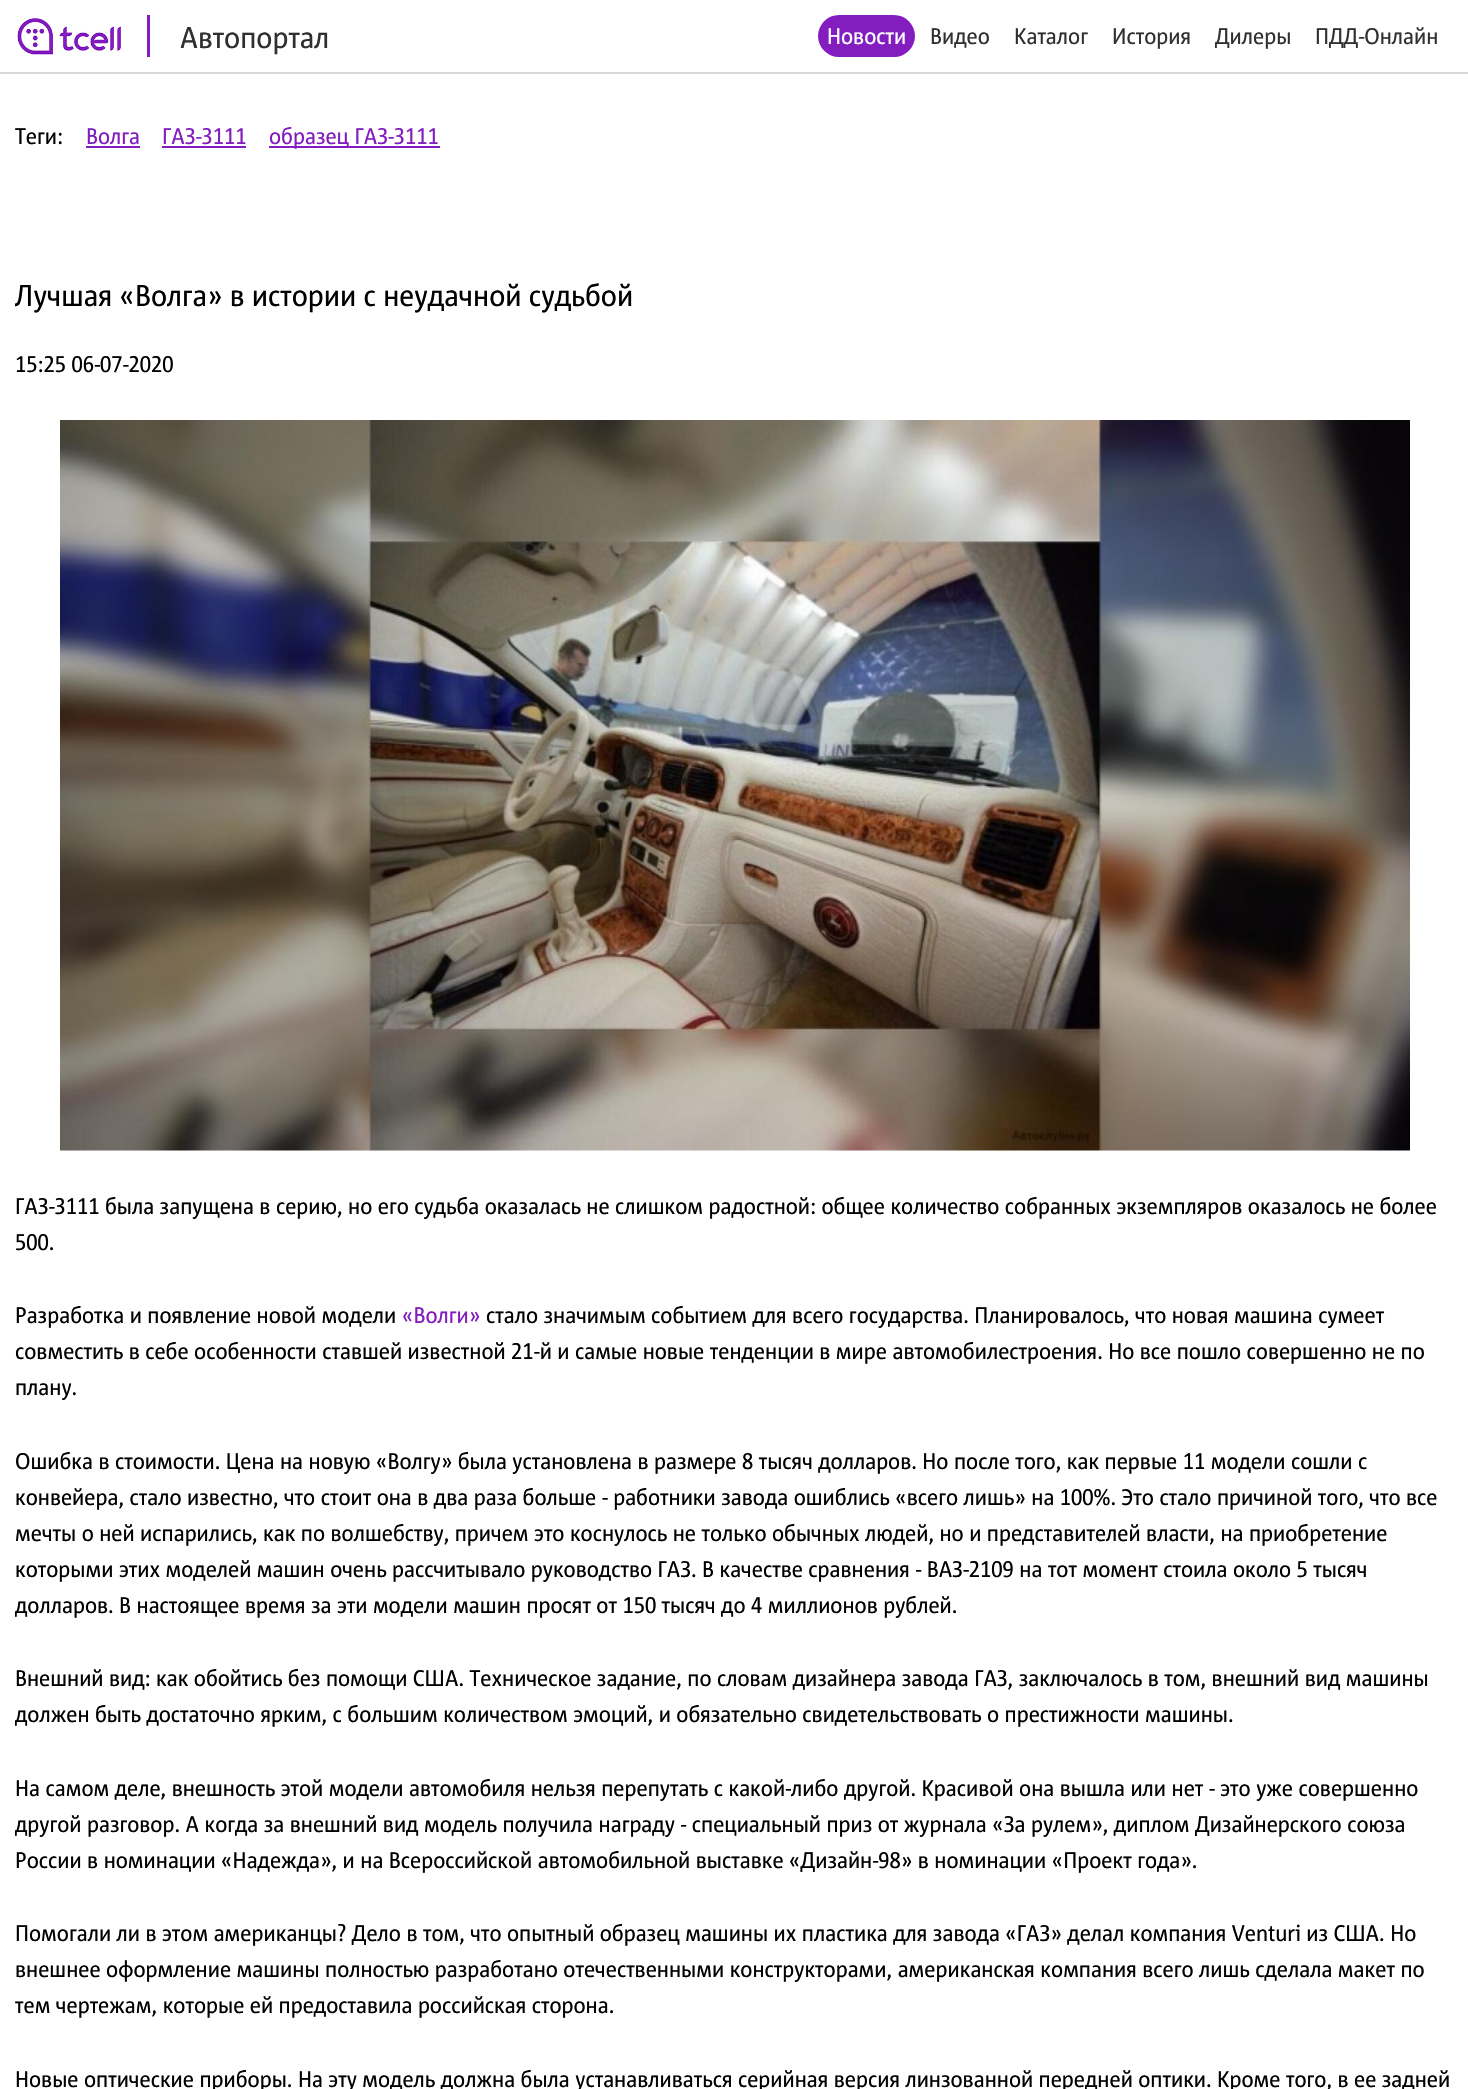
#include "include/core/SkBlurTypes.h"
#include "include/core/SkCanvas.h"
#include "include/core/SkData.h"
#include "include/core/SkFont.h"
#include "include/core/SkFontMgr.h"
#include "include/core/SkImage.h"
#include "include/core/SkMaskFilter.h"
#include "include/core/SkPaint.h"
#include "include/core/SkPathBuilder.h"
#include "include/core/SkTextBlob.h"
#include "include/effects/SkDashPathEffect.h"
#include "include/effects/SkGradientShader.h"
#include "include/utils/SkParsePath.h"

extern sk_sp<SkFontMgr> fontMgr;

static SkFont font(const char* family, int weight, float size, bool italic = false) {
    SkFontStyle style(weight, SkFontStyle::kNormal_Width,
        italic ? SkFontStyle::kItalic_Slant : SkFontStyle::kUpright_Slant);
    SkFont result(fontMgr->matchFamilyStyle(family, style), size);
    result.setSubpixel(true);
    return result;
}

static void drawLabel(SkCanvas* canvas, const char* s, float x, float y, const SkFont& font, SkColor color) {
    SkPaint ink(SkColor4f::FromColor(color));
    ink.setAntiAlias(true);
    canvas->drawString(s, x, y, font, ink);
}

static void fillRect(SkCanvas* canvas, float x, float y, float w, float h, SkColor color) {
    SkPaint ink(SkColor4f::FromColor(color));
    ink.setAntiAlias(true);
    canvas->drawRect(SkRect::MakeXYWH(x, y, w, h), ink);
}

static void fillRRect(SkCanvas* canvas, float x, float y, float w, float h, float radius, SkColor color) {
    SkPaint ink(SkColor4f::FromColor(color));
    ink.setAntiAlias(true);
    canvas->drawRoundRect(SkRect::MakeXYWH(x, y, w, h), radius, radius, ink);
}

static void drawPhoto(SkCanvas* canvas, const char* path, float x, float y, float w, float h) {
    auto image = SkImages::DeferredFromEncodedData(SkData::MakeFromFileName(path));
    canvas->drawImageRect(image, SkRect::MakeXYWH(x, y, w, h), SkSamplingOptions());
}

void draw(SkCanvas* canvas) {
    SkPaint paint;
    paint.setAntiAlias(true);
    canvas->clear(0xFFFFFFFF);
    fillRect(canvas, 0, 72, 1468, 2, 0xFFD7D8D5);
    drawPhoto(canvas, "assets/img1.png", 17, 18, 105, 37);
    fillRect(canvas, 147, 15, 3, 42, 0xFF831DBF);
    SkFont font1 = font("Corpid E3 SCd", 400, 30);
    drawLabel(canvas, "Автопортал", 180, 48, font1, 0xFF303030);
    fillRRect(canvas, 818, 15, 97, 42, 21, 0xFF831DBF);
    SkFont font2 = font("Corpid E3 SCd", 400, 22.5f);
    drawLabel(canvas, "Новости", 827, 44, font2, 0xFFFFFFFF);
    drawLabel(canvas, "Видео", 930, 44, font2, 0xFF303030);
    drawLabel(canvas, "Каталог", 1014, 44, font2, 0xFF303030);
    drawLabel(canvas, "История", 1112, 44, font2, 0xFF303030);
    drawLabel(canvas, "Дилеры", 1215, 44, font2, 0xFF303030);
    drawLabel(canvas, "ПДД-Онлайн", 1315, 44, font2, 0xFF303030);
    drawLabel(canvas, "Теги:", 15, 144, font2, 0xFF000000);
    drawLabel(canvas, "Волга", 86, 144, font2, 0xFF831DBF);
    fillRect(canvas, 86, 146, 54, 2, 0xFF831DBF);
    drawLabel(canvas, "ГАЗ-3111", 162, 144, font2, 0xFF831DBF);
    fillRect(canvas, 162, 146, 84, 2, 0xFF831DBF);
    fillRect(canvas, 269, 146, 171, 2, 0xFF831DBF);
    drawLabel(canvas, "образец ГАЗ-3111", 269, 144, font2, 0xFF831DBF);
    drawLabel(canvas, "Лучшая «Волга» в истории с неудачной судьбой", 15, 306, font1, 0xFF000000);
    drawLabel(canvas, "15:25 06-07-2020", 15, 372, font2, 0xFF000000);
    drawPhoto(canvas, "assets/img2.png", 60, 420, 1350, 731);
    drawLabel(canvas, "ГАЗ-3111 была запущена в серию, но его судьба оказалась не слишком радостной: общее количество собранных экземпляров оказалось не более", 15, 1214, font2, 0xFF000000);
    drawLabel(canvas, "500.", 15, 1250, font2, 0xFF000000);
    drawLabel(canvas, "Разработка и появление новой модели", 15, 1323, font2, 0xFF000000);
    drawLabel(canvas, "«Волги»", 402, 1323, font2, 0xFF831DBF);
    drawLabel(canvas, "стало значимым событием для всего государства. Планировалось, что новая машина сумеет", 486, 1323, font2, 0xFF000000);
    drawLabel(canvas, "совместить в себе особенности ставшей известной 21-й и самые новые тенденции в мире автомобилестроения. Но все пошло совершенно не по", 15, 1359, font2, 0xFF000000);
    drawLabel(canvas, "плану.", 15, 1395, font2, 0xFF000000);
    drawLabel(canvas, "Ошибка в стоимости. Цена на новую «Волгу» была установлена в размере 8 тысяч долларов. Но после того, как первые 11 модели сошли с", 15, 1469, font2, 0xFF000000);
    drawLabel(canvas, "конвейера, стало известно, что стоит она в два раза больше - работники завода ошиблись «всего лишь» на 100%. Это стало причиной того, что все", 15, 1505, font2, 0xFF000000);
    drawLabel(canvas, "мечты о ней испарились, как по волшебству, причем это коснулось не только обычных людей, но и представителей власти, на приобретение", 15, 1541, font2, 0xFF000000);
    drawLabel(canvas, "которыми этих моделей машин очень рассчитывало руководство ГАЗ. В качестве сравнения - ВАЗ-2109 на тот момент стоила около 5 тысяч", 15, 1577, font2, 0xFF000000);
    drawLabel(canvas, "долларов. В настоящее время за эти модели машин просят от 150 тысяч до 4 миллионов рублей.", 15, 1613, font2, 0xFF000000);
    drawLabel(canvas, "Внешний вид: как обойтись без помощи США. Техническое задание, по словам дизайнера завода ГАЗ, заключалось в том, внешний вид машины", 15, 1686, font2, 0xFF000000);
    drawLabel(canvas, "должен быть достаточно ярким, с большим количеством эмоций, и обязательно свидетельствовать о престижности машины.", 15, 1722, font2, 0xFF000000);
    drawLabel(canvas, "На самом деле, внешность этой модели автомобиля нельзя перепутать с какой-либо другой. Красивой она вышла или нет - это уже совершенно", 15, 1796, font2, 0xFF000000);
    drawLabel(canvas, "другой разговор. А когда за внешний вид модель получила награду - специальный приз от журнала «За рулем», диплом Дизайнерского союза", 15, 1832, font2, 0xFF000000);
    drawLabel(canvas, "России в номинации «Надежда», и на Всероссийской автомобильной выставке «Дизайн-98» в номинации «Проект года».", 15, 1868, font2, 0xFF000000);
    drawLabel(canvas, "Помогали ли в этом американцы? Дело в том, что опытный образец машины их пластика для завода «ГАЗ» делал компания Venturi из США. Но", 15, 1941, font2, 0xFF000000);
    drawLabel(canvas, "внешнее оформление машины полностью разработано отечественными конструкторами, американская компания всего лишь сделала макет по", 15, 1977, font2, 0xFF000000);
    drawLabel(canvas, "тем чертежам, которые ей предоставила российская сторона.", 15, 2013, font2, 0xFF000000);
    drawLabel(canvas, "Новые оптические приборы. На эту модель должна была устанавливаться серийная версия линзованной передней оптики. Кроме того, в ее задней", 15, 2087, font2, 0xFF000000);
}
